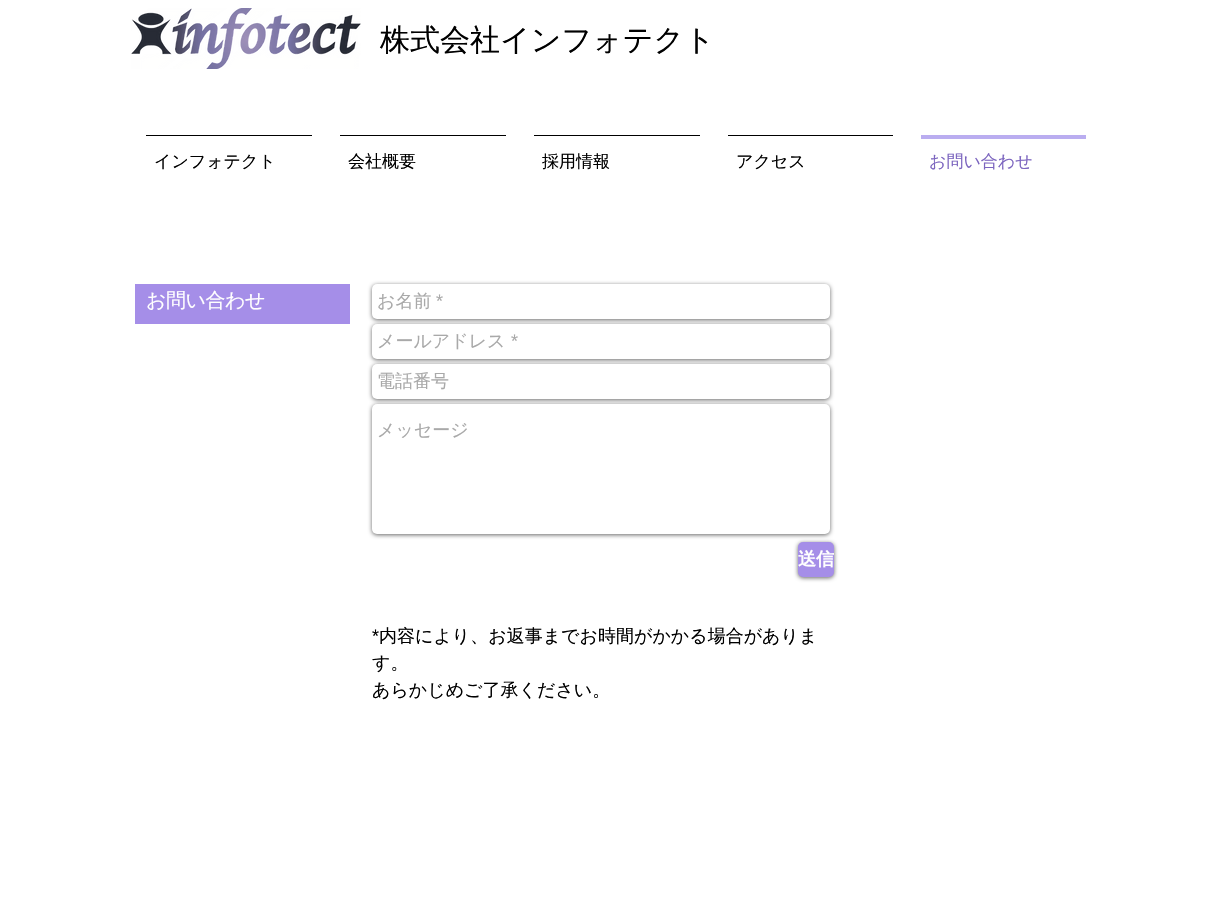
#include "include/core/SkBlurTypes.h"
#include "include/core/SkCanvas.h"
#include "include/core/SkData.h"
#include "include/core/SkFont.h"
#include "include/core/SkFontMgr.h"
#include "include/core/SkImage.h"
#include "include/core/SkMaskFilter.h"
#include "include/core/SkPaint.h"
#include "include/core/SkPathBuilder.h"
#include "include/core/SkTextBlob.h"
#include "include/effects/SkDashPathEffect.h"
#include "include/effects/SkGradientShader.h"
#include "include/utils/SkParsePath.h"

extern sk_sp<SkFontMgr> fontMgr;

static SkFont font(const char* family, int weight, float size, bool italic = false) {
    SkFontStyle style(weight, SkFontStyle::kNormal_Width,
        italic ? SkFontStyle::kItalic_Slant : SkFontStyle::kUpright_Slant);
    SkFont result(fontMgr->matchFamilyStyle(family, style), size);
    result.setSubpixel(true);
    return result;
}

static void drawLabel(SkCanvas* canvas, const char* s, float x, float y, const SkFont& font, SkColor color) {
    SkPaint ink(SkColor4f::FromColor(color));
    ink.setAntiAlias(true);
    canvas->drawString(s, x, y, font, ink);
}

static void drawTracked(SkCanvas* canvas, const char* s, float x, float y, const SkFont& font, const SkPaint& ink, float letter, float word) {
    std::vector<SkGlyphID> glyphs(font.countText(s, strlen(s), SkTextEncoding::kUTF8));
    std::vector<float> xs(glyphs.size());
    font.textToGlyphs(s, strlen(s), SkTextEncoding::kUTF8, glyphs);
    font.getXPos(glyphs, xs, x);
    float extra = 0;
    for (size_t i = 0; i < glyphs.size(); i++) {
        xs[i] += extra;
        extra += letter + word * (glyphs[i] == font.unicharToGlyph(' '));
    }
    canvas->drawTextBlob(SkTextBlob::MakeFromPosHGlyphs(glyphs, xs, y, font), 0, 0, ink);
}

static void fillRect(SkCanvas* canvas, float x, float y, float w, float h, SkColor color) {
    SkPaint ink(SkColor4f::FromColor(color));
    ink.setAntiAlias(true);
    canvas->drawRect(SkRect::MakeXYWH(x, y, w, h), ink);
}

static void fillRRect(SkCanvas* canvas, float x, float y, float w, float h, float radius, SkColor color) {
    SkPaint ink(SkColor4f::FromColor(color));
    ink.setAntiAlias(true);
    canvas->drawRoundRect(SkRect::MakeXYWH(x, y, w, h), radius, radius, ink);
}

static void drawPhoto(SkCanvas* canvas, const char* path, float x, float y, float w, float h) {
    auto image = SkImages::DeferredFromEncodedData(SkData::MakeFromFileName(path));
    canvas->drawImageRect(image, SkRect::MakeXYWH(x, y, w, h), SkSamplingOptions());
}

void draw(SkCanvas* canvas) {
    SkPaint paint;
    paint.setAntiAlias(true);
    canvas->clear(0xFFFFFFFF);
    drawPhoto(canvas, "assets/img1.png", 131, 8, 230, 61);
    SkFont font1 = font("WenQuanYi Zen Hei", 500, 30);
    drawLabel(canvas, "株式会社インフォテクト", 380, 50, font1, 0xFF000000);
    fillRect(canvas, 146, 135, 166, 1, 0xFF000000);
    SkFont font2 = font("WenQuanYi Zen Hei", 500, 17);
    drawLabel(canvas, "インフォテクト", 154, 167, font2, 0xFF000000);
    fillRect(canvas, 340, 135, 166, 1, 0xFF000000);
    drawLabel(canvas, "会社概要", 348, 167, font2, 0xFF000000);
    fillRect(canvas, 534, 135, 166, 1, 0xFF000000);
    drawLabel(canvas, "採用情報", 542, 167, font2, 0xFF000000);
    fillRect(canvas, 728, 135, 165, 1, 0xFF000000);
    drawLabel(canvas, "アクセス", 736, 167, font2, 0xFF000000);
    fillRect(canvas, 921, 135, 165, 4, 0xFFBAADF0);
    drawLabel(canvas, "お問い合わせ", 929, 167, font2, 0xFF7C65BF);
    fillRect(canvas, 135, 284, 215, 40, 0xFFA58EE8);
    SkFont font3 = font("WenQuanYi Zen Hei", 500, 20);
    paint.setColor(0xFFFFFFFF);
    drawTracked(canvas, "お問い合わせ", 146, 307, font3, paint, -0.5f, 0);
    paint.setColor(0x99000000);
    paint.setMaskFilter(SkMaskFilter::MakeBlur(kNormal_SkBlurStyle, 2));
    canvas->drawRoundRect(SkRect::MakeXYWH(372, 285, 458, 35), 5, 5, paint);
    paint.setMaskFilter(nullptr);
    fillRRect(canvas, 372, 284, 458, 35, 5, 0xFFFFFFFF);
    SkFont font4 = font("WenQuanYi Zen Hei", 500, 18);
    drawLabel(canvas, "お名前", 377, 307, font4, 0xFFA9A9A9);
    SkFont font5 = font("Liberation Sans", 400, 18);
    drawLabel(canvas, "*", 436, 307, font5, 0xFFA9A9A9);
    paint.setMaskFilter(SkMaskFilter::MakeBlur(kNormal_SkBlurStyle, 2));
    canvas->drawRoundRect(SkRect::MakeXYWH(372, 325, 458, 35), 5, 5, paint);
    paint.setMaskFilter(nullptr);
    fillRRect(canvas, 372, 324, 458, 35, 5, 0xFFFFFFFF);
    drawLabel(canvas, "メールアドレス", 377, 347, font4, 0xFFA9A9A9);
    drawLabel(canvas, "*", 511, 347, font5, 0xFFA9A9A9);
    paint.setMaskFilter(SkMaskFilter::MakeBlur(kNormal_SkBlurStyle, 2));
    canvas->drawRoundRect(SkRect::MakeXYWH(372, 365, 458, 35), 5, 5, paint);
    paint.setMaskFilter(nullptr);
    fillRRect(canvas, 372, 364, 458, 35, 5, 0xFFFFFFFF);
    drawLabel(canvas, "電話番号", 377, 387, font4, 0xFFA9A9A9);
    paint.setMaskFilter(SkMaskFilter::MakeBlur(kNormal_SkBlurStyle, 2));
    canvas->drawRoundRect(SkRect::MakeXYWH(372, 405, 458, 130), 5, 5, paint);
    paint.setMaskFilter(nullptr);
    fillRRect(canvas, 372, 404, 458, 130, 5, 0xFFFFFFFF);
    drawLabel(canvas, "メッセージ", 377, 436, font4, 0xFFA9A9A9);
    paint.setMaskFilter(SkMaskFilter::MakeBlur(kNormal_SkBlurStyle, 2));
    canvas->drawRoundRect(SkRect::MakeXYWH(798, 543, 36, 35), 5, 5, paint);
    paint.setMaskFilter(nullptr);
    fillRRect(canvas, 798, 542, 36, 35, 5, 0xFFA58EE8);
    SkFont font6 = font("WenQuanYi Zen Hei", 700, 18);
    drawLabel(canvas, "送信", 798, 565, font6, 0xFFFFFFFF);
    drawLabel(canvas, "*", 372, 642, font5, 0xFF000000);
    drawLabel(canvas, "内容により、お返事までお時間がかかる場合がありま", 379, 642, font4, 0xFF000000);
    drawLabel(canvas, "す。", 372, 669, font4, 0xFF000000);
    drawLabel(canvas, "あらかじめご了承ください。", 372, 696, font4, 0xFF000000);
}
